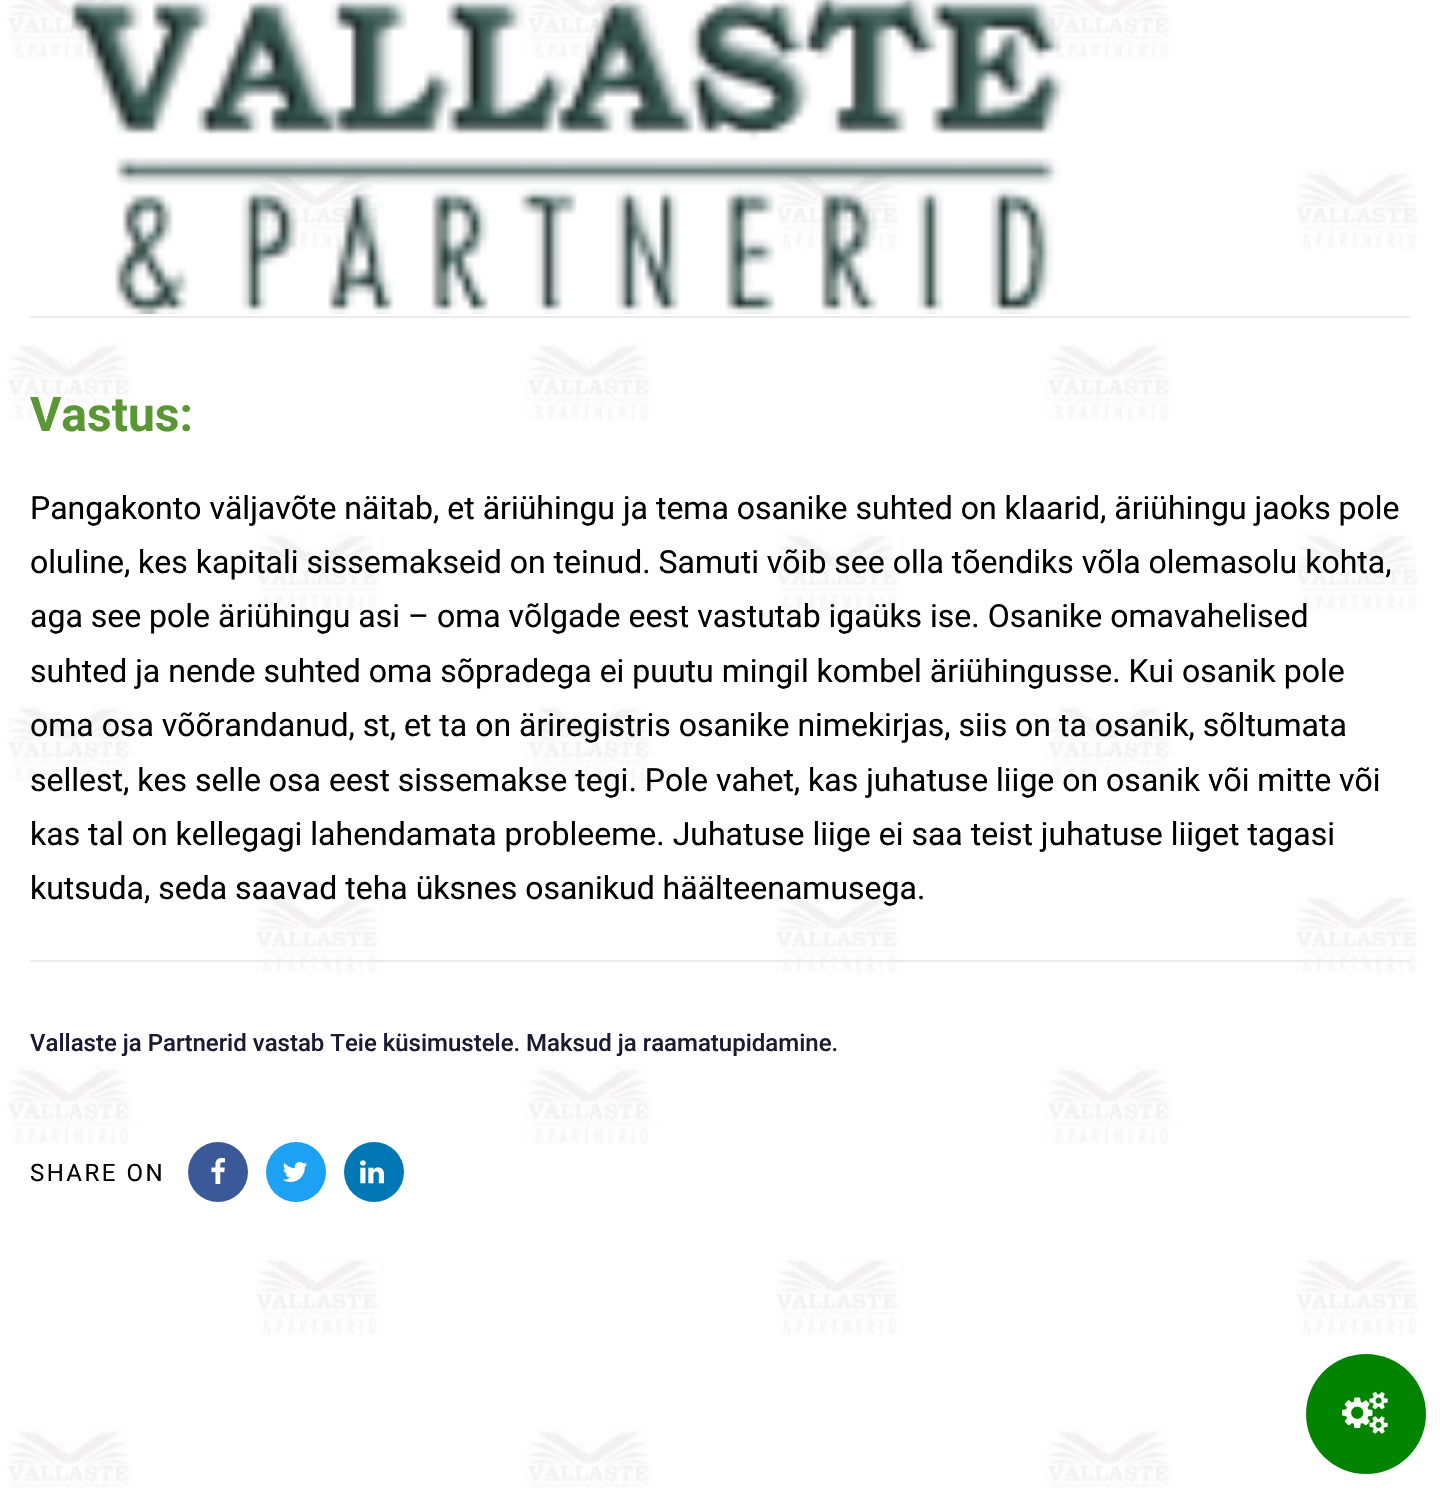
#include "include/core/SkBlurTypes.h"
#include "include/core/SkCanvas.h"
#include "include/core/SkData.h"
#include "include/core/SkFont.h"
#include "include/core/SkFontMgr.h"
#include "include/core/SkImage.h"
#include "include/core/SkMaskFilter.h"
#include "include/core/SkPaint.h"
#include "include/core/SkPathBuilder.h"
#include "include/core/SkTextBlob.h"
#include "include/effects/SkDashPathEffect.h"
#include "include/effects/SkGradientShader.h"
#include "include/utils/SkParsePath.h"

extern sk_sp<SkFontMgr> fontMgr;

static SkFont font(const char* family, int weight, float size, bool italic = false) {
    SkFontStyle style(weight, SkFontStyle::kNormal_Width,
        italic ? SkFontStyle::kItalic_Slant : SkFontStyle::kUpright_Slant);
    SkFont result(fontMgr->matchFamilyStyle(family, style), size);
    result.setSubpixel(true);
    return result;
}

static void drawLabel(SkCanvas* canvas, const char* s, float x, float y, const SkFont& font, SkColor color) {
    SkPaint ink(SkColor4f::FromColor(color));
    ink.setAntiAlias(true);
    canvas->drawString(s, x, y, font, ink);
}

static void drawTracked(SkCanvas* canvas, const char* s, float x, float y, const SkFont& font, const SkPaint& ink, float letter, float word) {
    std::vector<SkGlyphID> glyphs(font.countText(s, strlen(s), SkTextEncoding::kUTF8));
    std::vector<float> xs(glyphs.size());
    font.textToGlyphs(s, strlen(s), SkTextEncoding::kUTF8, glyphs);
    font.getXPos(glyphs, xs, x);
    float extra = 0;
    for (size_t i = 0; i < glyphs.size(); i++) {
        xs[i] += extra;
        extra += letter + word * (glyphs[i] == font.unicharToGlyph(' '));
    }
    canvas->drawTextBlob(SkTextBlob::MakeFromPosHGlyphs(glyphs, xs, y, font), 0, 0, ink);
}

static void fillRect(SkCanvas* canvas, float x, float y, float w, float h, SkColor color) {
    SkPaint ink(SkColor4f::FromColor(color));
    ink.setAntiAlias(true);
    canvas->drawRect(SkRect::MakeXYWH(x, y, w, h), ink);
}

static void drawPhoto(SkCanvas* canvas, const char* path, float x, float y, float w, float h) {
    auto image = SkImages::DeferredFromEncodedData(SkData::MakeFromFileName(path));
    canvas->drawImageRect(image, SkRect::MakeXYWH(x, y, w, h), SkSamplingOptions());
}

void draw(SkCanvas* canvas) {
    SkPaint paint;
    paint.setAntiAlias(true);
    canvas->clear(0xFFFFFFFF);
    drawPhoto(canvas, "assets/img1.png", 7, 0, 1410, 1488);
    drawPhoto(canvas, "assets/img2.png", 67, 0, 1001, 314);
    fillRect(canvas, 30, 316, 1380, 2, 0xFFEBEBEB);
    SkFont font1 = font("Roboto", 700, 48);
    drawLabel(canvas, "Vastus:", 30, 431, font1, 0xFF5B9634);
    SkFont font2 = font("Roboto", 400, 32);
    drawLabel(canvas, "Pangakonto väljavõte näitab, et äriühingu ja tema osanike suhted on klaarid, äriühingu jaoks pole", 30, 519, font2, 0xFF000000);
    drawLabel(canvas, "oluline, kes kapitali sissemakseid on teinud. Samuti võib see olla tõendiks võla olemasolu kohta,", 30, 573, font2, 0xFF000000);
    drawLabel(canvas, "aga see pole äriühingu asi – oma võlgade eest vastutab igaüks ise. Osanike omavahelised", 30, 627, font2, 0xFF000000);
    drawLabel(canvas, "suhted ja nende suhted oma sõpradega ei puutu mingil kombel äriühingusse. Kui osanik pole", 30, 682, font2, 0xFF000000);
    drawLabel(canvas, "oma osa võõrandanud, st, et ta on äriregistris osanike nimekirjas, siis on ta osanik, sõltumata", 30, 736, font2, 0xFF000000);
    drawLabel(canvas, "sellest, kes selle osa eest sissemakse tegi. Pole vahet, kas juhatuse liige on osanik või mitte või", 30, 791, font2, 0xFF000000);
    drawLabel(canvas, "kas tal on kellegagi lahendamata probleeme. Juhatuse liige ei saa teist juhatuse liiget tagasi", 30, 845, font2, 0xFF000000);
    drawLabel(canvas, "kutsuda, seda saavad teha üksnes osanikud häälteenamusega.", 30, 899, font2, 0xFF000000);
    fillRect(canvas, 30, 960, 1380, 2, 0xFFEBEBEB);
    SkFont font3 = font("Roboto", 500, 24);
    drawLabel(canvas, "Vallaste ja Partnerid vastab Teie küsimustele. Maksud ja raamatupidamine.", 30, 1051, font3, 0xFF181B31);
    SkFont font4 = font("Roboto", 400, 24);
    paint.setColor(0xFF000000);
    drawTracked(canvas, "SHARE ON", 30, 1181, font4, paint, 2.5f, 0);
    paint.setColor(0xFF3B5998);
    canvas->drawCircle(218, 1172, 30, paint);
    drawPhoto(canvas, "assets/img3.png", 211, 1158, 14, 26);
    paint.setColor(0xFF1DA1F2);
    canvas->drawCircle(296, 1172, 30, paint);
    drawPhoto(canvas, "assets/img4.png", 282, 1162, 26, 20);
    paint.setColor(0xFF0077B5);
    canvas->drawCircle(374, 1172, 30, paint);
    drawPhoto(canvas, "assets/img5.png", 360, 1160, 24, 24);
    paint.setColor(0xFF028400);
    canvas->drawCircle(1366, 1414, 60, paint);
    drawPhoto(canvas, "assets/img6.png", 1342, 1391, 46, 43);
}
